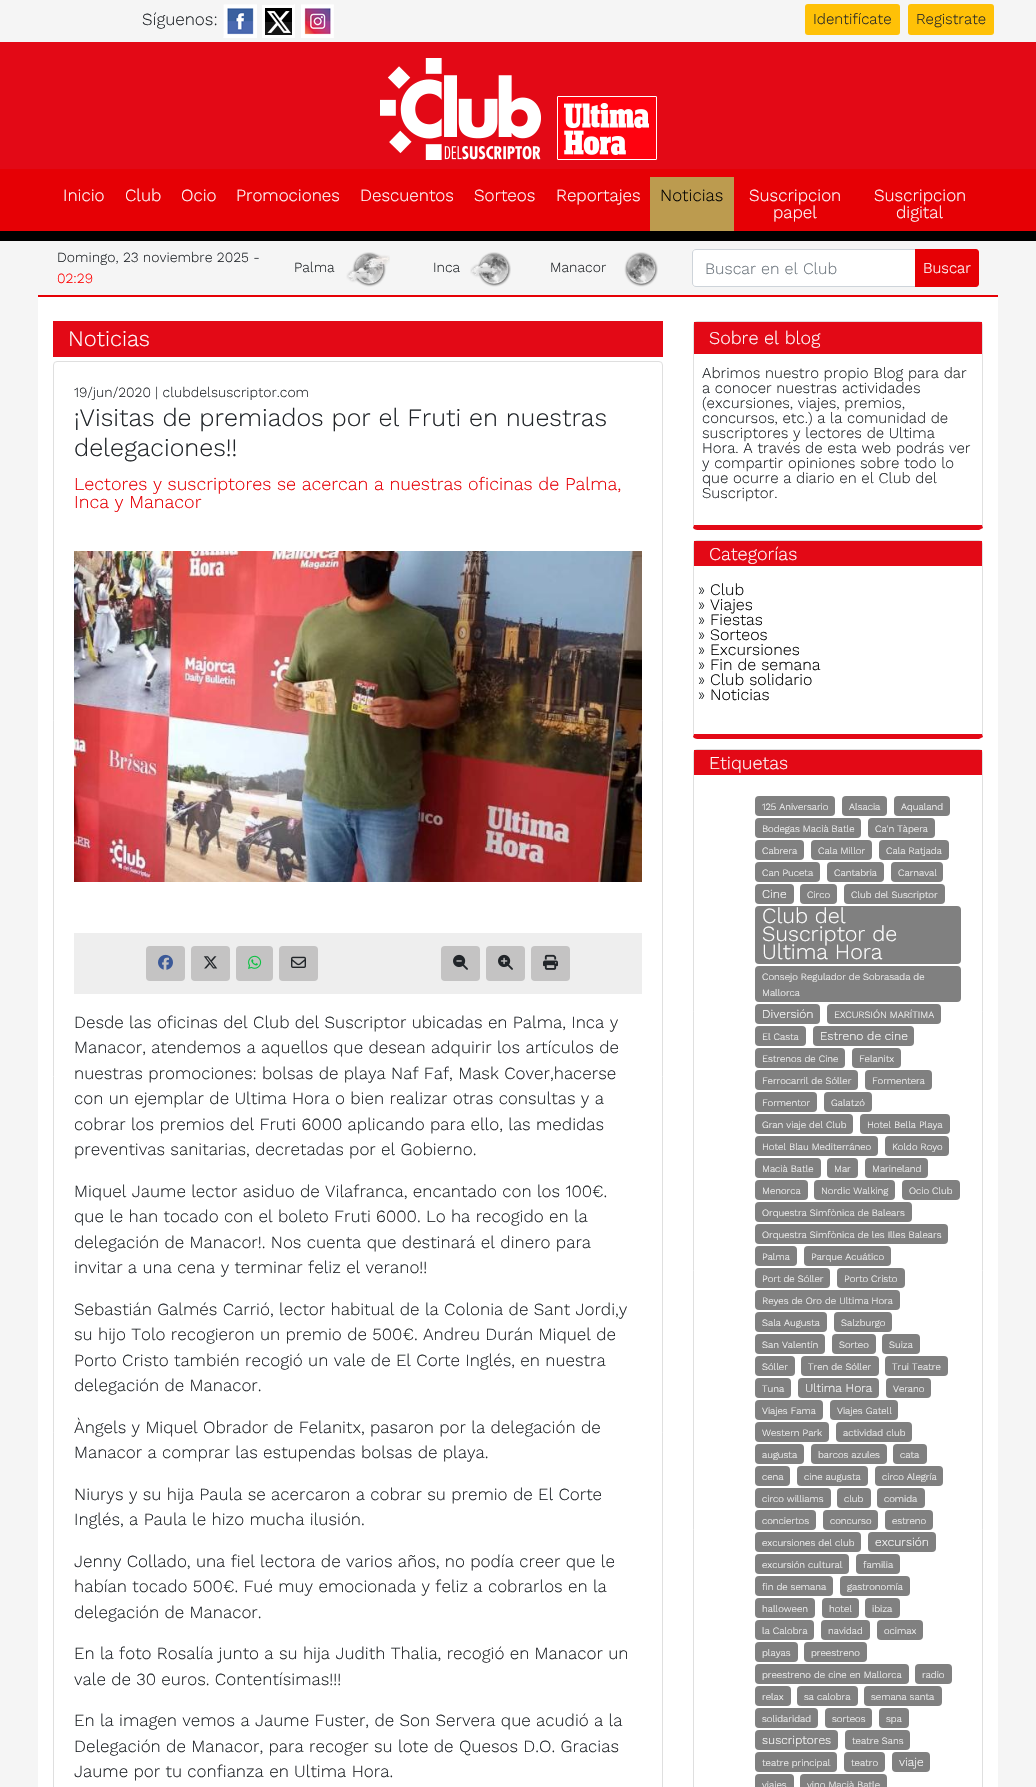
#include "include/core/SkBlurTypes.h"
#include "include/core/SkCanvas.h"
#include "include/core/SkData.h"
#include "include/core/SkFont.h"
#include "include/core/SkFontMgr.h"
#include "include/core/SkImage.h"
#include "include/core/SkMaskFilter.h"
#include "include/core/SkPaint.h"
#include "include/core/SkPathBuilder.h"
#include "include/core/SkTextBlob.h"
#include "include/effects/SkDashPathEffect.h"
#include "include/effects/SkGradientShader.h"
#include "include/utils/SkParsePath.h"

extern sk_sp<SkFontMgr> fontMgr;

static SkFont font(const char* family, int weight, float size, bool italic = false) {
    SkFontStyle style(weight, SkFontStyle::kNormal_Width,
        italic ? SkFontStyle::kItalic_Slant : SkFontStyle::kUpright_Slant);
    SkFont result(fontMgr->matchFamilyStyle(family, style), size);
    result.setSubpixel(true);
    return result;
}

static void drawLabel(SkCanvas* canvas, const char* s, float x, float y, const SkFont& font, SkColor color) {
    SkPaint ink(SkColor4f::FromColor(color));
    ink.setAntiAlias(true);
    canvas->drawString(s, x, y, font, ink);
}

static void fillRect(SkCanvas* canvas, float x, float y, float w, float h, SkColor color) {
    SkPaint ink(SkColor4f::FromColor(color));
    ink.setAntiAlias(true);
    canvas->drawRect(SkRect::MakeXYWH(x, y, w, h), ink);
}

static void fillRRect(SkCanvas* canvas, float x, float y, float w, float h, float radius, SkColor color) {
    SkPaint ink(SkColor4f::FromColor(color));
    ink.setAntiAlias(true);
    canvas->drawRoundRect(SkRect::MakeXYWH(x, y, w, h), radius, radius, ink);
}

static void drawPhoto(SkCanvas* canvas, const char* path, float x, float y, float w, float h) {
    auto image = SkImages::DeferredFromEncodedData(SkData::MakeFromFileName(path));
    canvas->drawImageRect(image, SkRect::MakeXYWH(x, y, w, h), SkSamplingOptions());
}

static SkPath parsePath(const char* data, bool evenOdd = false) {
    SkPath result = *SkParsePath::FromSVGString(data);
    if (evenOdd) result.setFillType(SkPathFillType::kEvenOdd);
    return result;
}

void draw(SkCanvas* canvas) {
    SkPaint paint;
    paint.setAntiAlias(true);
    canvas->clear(0xFFF5F5F5);
    SkFont font1 = font("Work Sans", 300, 17);
    drawLabel(canvas, "Síguenos:", 142, 25, font1, 0xFF212529);
    drawPhoto(canvas, "assets/img1.png", 223, 4, 34, 34);
    drawPhoto(canvas, "assets/img2.png", 262, 4, 33, 34);
    drawPhoto(canvas, "assets/img3.png", 301, 4, 33, 34);
    fillRRect(canvas, 805, 4, 95, 31, 3, 0xFFFFC107);
    SkFont font2 = font("Work Sans", 300, 15);
    drawLabel(canvas, "Identifícate", 813, 24, font2, 0xFF212529);
    fillRRect(canvas, 908, 4, 86, 31, 3, 0xFFFFC107);
    drawLabel(canvas, "Registrate", 916, 24, font2, 0xFF212529);
    fillRect(canvas, 0, 42, 1036, 127, 0xFFE30916);
    drawPhoto(canvas, "assets/img4.png", 380, 58, 277, 102);
    fillRect(canvas, 0, 169, 1036, 62, 0xFFE60005);
    fillRect(canvas, 0, 231, 1036, 10, 0xFF000000);
    drawLabel(canvas, "Inicio", 63, 201, font1, 0xFFFFFFFF);
    drawLabel(canvas, "Club", 125, 201, font1, 0xFFFFFFFF);
    drawLabel(canvas, "Ocio", 181, 201, font1, 0xFFFFFFFF);
    drawLabel(canvas, "Promociones", 236, 201, font1, 0xFFFFFFFF);
    drawLabel(canvas, "Descuentos", 360, 201, font1, 0xFFFFFFFF);
    drawLabel(canvas, "Sorteos", 474, 201, font1, 0xFFFFFFFF);
    drawLabel(canvas, "Reportajes", 556, 201, font1, 0xFFFFFFFF);
    fillRect(canvas, 650, 177, 84, 54, 0xFFBC9B4F);
    drawLabel(canvas, "Noticias", 660, 201, font1, 0xFF000000);
    drawLabel(canvas, "Suscripcion", 749, 201, font1, 0xFFFFFFFF);
    drawLabel(canvas, "papel", 773, 218, font1, 0xFFFFFFFF);
    drawLabel(canvas, "Suscripcion", 874, 201, font1, 0xFFFFFFFF);
    drawLabel(canvas, "digital", 896, 218, font1, 0xFFFFFFFF);
    fillRect(canvas, 38, 295, 960, 2, 0xFFE60005);
    SkFont font3 = font("Work Sans", 300, 14);
    drawLabel(canvas, "Domingo, 23 noviembre 2025 -", 57, 262, font3, 0xFF212529);
    drawLabel(canvas, "02:29", 57, 283, font3, 0xFFFF0000);
    drawLabel(canvas, "Palma", 294, 272, font3, 0xFF212529);
    drawPhoto(canvas, "assets/img5.png", 346, 252, 44, 35);
    drawLabel(canvas, "Inca", 433, 272, font3, 0xFF212529);
    drawPhoto(canvas, "assets/img6.png", 470, 252, 41, 35);
    drawLabel(canvas, "Manacor", 550, 272, font3, 0xFF212529);
    drawPhoto(canvas, "assets/img7.png", 624, 252, 34, 35);
    paint.setColor(0xFFFFFFFF);
    canvas->drawPath(parsePath("M696 249.5H915.5V286.5H696C694 286.5 692.5 285 692.5 283V253C692.5 251 694 249.5 696 249.5Z"), paint);
    paint.setStroke(true);
    paint.setStrokeWidth(1);
    paint.setColor(0xFFCED4DA);
    canvas->drawPath(parsePath("M696 249.5H915.5V286.5H696C694 286.5 692.5 285 692.5 283V253C692.5 251 694 249.5 696 249.5Z"), paint);
    SkFont font4 = font("Work Sans", 300, 16);
    drawLabel(canvas, "Buscar en el Club", 705, 274, font4, 0xFF6C757D);
    paint.setStroke(false);
    paint.setColor(0xFFE60005);
    canvas->drawPath(parsePath("M915 249H976C977.5 249 979 250.5 979 252V284C979 285.5 977.5 287 976 287H915Z"), paint);
    drawLabel(canvas, "Buscar", 923, 273, font2, 0xFFFFFFFF);
    fillRect(canvas, 38, 297, 960, 1490, 0xFFFFFFFF);
    fillRect(canvas, 53, 321, 610, 36, 0xFFE30916);
    SkFont font5 = font("Work Sans", 300, 22);
    drawLabel(canvas, "Noticias", 68, 346, font5, 0xFFFFFFFF);
    paint.setStroke(true);
    paint.setColor(0xFFDFDFDF);
    canvas->drawRoundRect(SkRect::MakeXYWH(53.5f, 361.5f, 609, 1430), 3.5f, 3.5f, paint);
    drawLabel(canvas, "19/jun/2020 | clubdelsuscriptor.com", 74, 397, font3, 0xFF212529);
    SkFont font6 = font("Work Sans", 300, 25);
    drawLabel(canvas, "¡Visitas de premiados por el Fruti en nuestras", 74, 426, font6, 0xFF212529);
    drawLabel(canvas, "delegaciones!!", 74, 456, font6, 0xFF212529);
    SkFont font7 = font("Work Sans", 300, 18);
    drawLabel(canvas, "Lectores y suscriptores se acercan a nuestras oficinas de Palma,", 74, 490, font7, 0xFFE60005);
    drawLabel(canvas, "Inca y Manacor", 74, 508, font7, 0xFFE60005);
    drawPhoto(canvas, "assets/img8.png", 74, 551, 568, 331);
    fillRect(canvas, 74, 933, 568, 61, 0xFFEEEEEE);
    fillRRect(canvas, 146, 946, 39, 35, 4, 0xFFC4C3C3);
    drawPhoto(canvas, "assets/img9.png", 158, 954, 15, 16);
    fillRRect(canvas, 191, 946, 39, 35, 4, 0xFFC4C3C3);
    drawPhoto(canvas, "assets/img10.png", 203, 956, 15, 13);
    fillRRect(canvas, 236, 946, 37, 35, 4, 0xFFC4C3C3);
    drawPhoto(canvas, "assets/img11.png", 248, 955, 14, 14);
    fillRRect(canvas, 279, 946, 39, 35, 4, 0xFFC4C3C3);
    drawPhoto(canvas, "assets/img12.png", 291, 956, 15, 12);
    fillRRect(canvas, 441, 946, 39, 35, 4, 0xFFC4C3C3);
    drawPhoto(canvas, "assets/img13.png", 453, 954, 15, 16);
    fillRRect(canvas, 486, 946, 39, 35, 4, 0xFFC4C3C3);
    drawPhoto(canvas, "assets/img14.png", 498, 954, 15, 16);
    fillRRect(canvas, 531, 946, 39, 35, 4, 0xFFC4C3C3);
    drawPhoto(canvas, "assets/img15.png", 543, 954, 15, 16);
    drawLabel(canvas, "Desde las oficinas del Club del Suscriptor ubicadas en Palma, Inca y", 74, 1028, font1, 0xFF212529);
    drawLabel(canvas, "Manacor, atendemos a aquellos que desean adquirir los artículos de", 74, 1053, font1, 0xFF212529);
    drawLabel(canvas, "nuestras promociones: bolsas de playa Naf Faf, Mask Cover,hacerse", 74, 1079, font1, 0xFF212529);
    drawLabel(canvas, "con un ejemplar de Ultima Hora o bien realizar otras consultas y a", 74, 1104, font1, 0xFF212529);
    drawLabel(canvas, "cobrar los premios del Fruti 6000 aplicando para ello, las medidas", 74, 1130, font1, 0xFF212529);
    drawLabel(canvas, "preventivas sanitarias, decretadas por el Gobierno.", 74, 1155, font1, 0xFF212529);
    drawLabel(canvas, "Miquel Jaume lector asiduo de Vilafranca, encantado con los 100€.", 74, 1197, font1, 0xFF212529);
    drawLabel(canvas, "que le han tocado con el boleto Fruti 6000. Lo ha recogido en la", 74, 1222, font1, 0xFF212529);
    drawLabel(canvas, "delegación de Manacor!. Nos cuenta que destinará el dinero para", 74, 1248, font1, 0xFF212529);
    drawLabel(canvas, "invitar a una cena y terminar feliz el verano!!", 74, 1273, font1, 0xFF212529);
    drawLabel(canvas, "Sebastián Galmés Carrió, lector habitual de la Colonia de Sant Jordi,y", 74, 1315, font1, 0xFF212529);
    drawLabel(canvas, "su hijo Tolo recogieron un premio de 500€. Andreu Durán Miquel de", 74, 1340, font1, 0xFF212529);
    drawLabel(canvas, "Porto Cristo también recogió un vale de El Corte Inglés, en nuestra", 74, 1366, font1, 0xFF212529);
    drawLabel(canvas, "delegación de Manacor.", 74, 1391, font1, 0xFF212529);
    drawLabel(canvas, "Àngels y Miquel Obrador de Felanitx, pasaron por la delegación de", 74, 1433, font1, 0xFF212529);
    drawLabel(canvas, "Manacor a comprar las estupendas bolsas de playa.", 74, 1458, font1, 0xFF212529);
    drawLabel(canvas, "Niurys y su hija Paula se acercaron a cobrar su premio de El Corte", 74, 1500, font1, 0xFF212529);
    drawLabel(canvas, "Inglés, a Paula le hizo mucha ilusión.", 74, 1525, font1, 0xFF212529);
    drawLabel(canvas, "Jenny Collado, una fiel lectora de varios años, no podía creer que le", 74, 1567, font1, 0xFF212529);
    drawLabel(canvas, "habían tocado 500€. Fué muy emocionada y feliz a cobrarlos en la", 74, 1592, font1, 0xFF212529);
    drawLabel(canvas, "delegación de Manacor.", 74, 1618, font1, 0xFF212529);
    drawLabel(canvas, "En la foto Rosalía junto a su hija Judith Thalia, recogió en Manacor un", 74, 1659, font1, 0xFF212529);
    drawLabel(canvas, "vale de 30 euros. Contentísimas!!!", 74, 1685, font1, 0xFF212529);
    drawLabel(canvas, "En la imagen vemos a Jaume Fuster, de Son Servera que acudió a la", 74, 1726, font1, 0xFF212529);
    drawLabel(canvas, "Delegación de Manacor, para recoger su lote de Quesos D.O. Gracias", 74, 1752, font1, 0xFF212529);
    drawLabel(canvas, "Jaume por tu confianza en Ultima Hora.", 74, 1777, font1, 0xFF212529);
    paint.setStroke(false);
    canvas->drawPath(parsePath("M697 321L694 322L695 323L697 322H979L981 323L982 322L979 321Z"), paint);
    paint.setColor(0x1F000000);
    canvas->drawPath(parsePath("M983 526V325C983 324 982 323 982 322L981 323L982 325V525L983 528Z"), paint);
    paint.setColor(0xFFE30916);
    canvas->drawPath(parsePath("M697 530H979L981 529L983 528L982 525H694L693 528C694 529 696 530 697 530Z"), paint);
    paint.setColor(0x1F000000);
    canvas->drawPath(parsePath("M693 325V526V528L694 525V325L695 323L694 322Z"), paint);
    fillRect(canvas, 694, 322, 288, 32, 0xFFE30916);
    drawLabel(canvas, "Sobre el blog", 709, 344, font7, 0xFFFFFFFF);
    drawLabel(canvas, "Abrimos nuestro propio Blog para dar", 702, 378, font2, 0xFF212529);
    drawLabel(canvas, "a conocer nuestras actividades", 702, 393, font2, 0xFF212529);
    drawLabel(canvas, "(excursiones, viajes, premios,", 702, 408, font2, 0xFF212529);
    drawLabel(canvas, "concursos, etc.) a la comunidad de", 702, 423, font2, 0xFF212529);
    drawLabel(canvas, "suscriptores y lectores de Ultima", 702, 438, font2, 0xFF212529);
    drawLabel(canvas, "Hora. A través de esta web podrás ver", 702, 453, font2, 0xFF212529);
    drawLabel(canvas, "y compartir opiniones sobre todo lo", 702, 468, font2, 0xFF212529);
    drawLabel(canvas, "que ocurre a diario en el Club del", 702, 483, font2, 0xFF212529);
    drawLabel(canvas, "Suscriptor.", 702, 498, font2, 0xFF212529);
    paint.setColor(0xFFDFDFDF);
    canvas->drawPath(parsePath("M697 540L694 541L695 542L697 541H979L981 542L982 541L979 540Z"), paint);
    paint.setColor(0x1F000000);
    canvas->drawPath(parsePath("M983 735V544C983 543 982 542 982 541L981 542L982 544V734L983 737Z"), paint);
    paint.setColor(0xFFE30916);
    canvas->drawPath(parsePath("M697 739H979L981 738L983 737L982 734H694L693 737C694 738 696 739 697 739Z"), paint);
    paint.setColor(0x1F000000);
    canvas->drawPath(parsePath("M693 544V735V737L694 734V544L695 542L694 541Z"), paint);
    fillRect(canvas, 694, 541, 288, 25, 0xFFE30916);
    drawLabel(canvas, "Categorías", 709, 560, font7, 0xFFFFFFFF);
    drawLabel(canvas, "»", 698, 595, font4, 0xFF212529);
    drawLabel(canvas, "Club", 710, 595, font4, 0xFF000000);
    drawLabel(canvas, "»", 698, 610, font4, 0xFF212529);
    drawLabel(canvas, "Viajes", 710, 610, font4, 0xFF000000);
    drawLabel(canvas, "»", 698, 625, font4, 0xFF212529);
    drawLabel(canvas, "Fiestas", 710, 625, font4, 0xFF000000);
    drawLabel(canvas, "»", 698, 640, font4, 0xFF212529);
    drawLabel(canvas, "Sorteos", 710, 640, font4, 0xFF000000);
    drawLabel(canvas, "»", 698, 655, font4, 0xFF212529);
    drawLabel(canvas, "Excursiones", 710, 655, font4, 0xFF000000);
    drawLabel(canvas, "»", 698, 670, font4, 0xFF212529);
    drawLabel(canvas, "Fin de semana", 710, 670, font4, 0xFF000000);
    drawLabel(canvas, "»", 698, 685, font4, 0xFF212529);
    drawLabel(canvas, "Club solidario", 710, 685, font4, 0xFF000000);
    drawLabel(canvas, "»", 698, 700, font4, 0xFF212529);
    drawLabel(canvas, "Noticias", 710, 700, font4, 0xFF000000);
    paint.setStroke(true);
    paint.setColor(0xFFDFDFDF);
    canvas->drawRoundRect(SkRect::MakeXYWH(693.5f, 749.5f, 289, 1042), 3.5f, 3.5f, paint);
    fillRect(canvas, 694, 750, 288, 25, 0xFFE30916);
    drawLabel(canvas, "Etiquetas", 709, 769, font7, 0xFFFFFFFF);
    fillRRect(canvas, 755, 796, 80, 20, 4, 0xFF808080);
    SkFont font8 = font("Work Sans", 300, 9.6f);
    drawLabel(canvas, "125 Aniversario", 762, 810, font8, 0xFFFFFFFF);
    fillRRect(canvas, 842, 796, 45, 20, 4, 0xFF808080);
    drawLabel(canvas, "Alsacia", 849, 810, font8, 0xFFFFFFFF);
    fillRRect(canvas, 894, 796, 56, 20, 4, 0xFF808080);
    drawLabel(canvas, "Aqualand", 901, 810, font8, 0xFFFFFFFF);
    fillRRect(canvas, 755, 818, 106, 20, 4, 0xFF808080);
    drawLabel(canvas, "Bodegas Macià Batle", 762, 832, font8, 0xFFFFFFFF);
    fillRRect(canvas, 868, 818, 67, 20, 4, 0xFF808080);
    drawLabel(canvas, "Ca'n Tàpera", 875, 832, font8, 0xFFFFFFFF);
    fillRRect(canvas, 755, 840, 49, 20, 4, 0xFF808080);
    drawLabel(canvas, "Cabrera", 762, 854, font8, 0xFFFFFFFF);
    fillRRect(canvas, 811, 840, 61, 20, 4, 0xFF808080);
    drawLabel(canvas, "Cala Millor", 818, 854, font8, 0xFFFFFFFF);
    fillRRect(canvas, 879, 840, 70, 20, 4, 0xFF808080);
    drawLabel(canvas, "Cala Ratjada", 886, 854, font8, 0xFFFFFFFF);
    fillRRect(canvas, 755, 862, 65, 20, 4, 0xFF808080);
    drawLabel(canvas, "Can Puceta", 762, 876, font8, 0xFFFFFFFF);
    fillRRect(canvas, 827, 862, 57, 20, 4, 0xFF808080);
    drawLabel(canvas, "Cantabria", 834, 876, font8, 0xFFFFFFFF);
    fillRRect(canvas, 891, 862, 52, 20, 4, 0xFF808080);
    drawLabel(canvas, "Carnaval", 898, 876, font8, 0xFFFFFFFF);
    fillRRect(canvas, 755, 884, 39, 20, 4, 0xFF808080);
    SkFont font9 = font("Work Sans", 300, 12);
    drawLabel(canvas, "Cine", 762, 898, font9, 0xFFFFFFFF);
    fillRRect(canvas, 800, 884, 37, 20, 4, 0xFF808080);
    drawLabel(canvas, "Circo", 807, 898, font8, 0xFFFFFFFF);
    fillRRect(canvas, 844, 884, 101, 20, 4, 0xFF808080);
    drawLabel(canvas, "Club del Suscriptor", 851, 898, font8, 0xFFFFFFFF);
    fillRRect(canvas, 755, 906, 206, 58, 4, 0xFF808080);
    SkFont font10 = font("Work Sans", 300, 21.5f);
    drawLabel(canvas, "Club del", 762, 923, font10, 0xFFFFFFFF);
    drawLabel(canvas, "Suscriptor de", 762, 941, font10, 0xFFFFFFFF);
    drawLabel(canvas, "Ultima Hora", 762, 959, font10, 0xFFFFFFFF);
    fillRRect(canvas, 755, 966, 206, 36, 4, 0xFF808080);
    drawLabel(canvas, "Consejo Regulador de Sobrasada de", 762, 980, font8, 0xFFFFFFFF);
    drawLabel(canvas, "Mallorca", 762, 996, font8, 0xFFFFFFFF);
    fillRRect(canvas, 755, 1004, 65, 20, 4, 0xFF808080);
    drawLabel(canvas, "Diversión", 762, 1018, font9, 0xFFFFFFFF);
    fillRRect(canvas, 827, 1004, 114, 20, 4, 0xFF808080);
    drawLabel(canvas, "EXCURSIÓN MARÍTIMA", 834, 1018, font8, 0xFFFFFFFF);
    fillRRect(canvas, 755, 1026, 51, 20, 4, 0xFF808080);
    drawLabel(canvas, "El Casta", 762, 1040, font8, 0xFFFFFFFF);
    fillRRect(canvas, 813, 1026, 101, 20, 4, 0xFF808080);
    drawLabel(canvas, "Estreno de cine", 820, 1040, font9, 0xFFFFFFFF);
    fillRRect(canvas, 755, 1048, 90, 20, 4, 0xFF808080);
    drawLabel(canvas, "Estrenos de Cine", 762, 1062, font8, 0xFFFFFFFF);
    fillRRect(canvas, 852, 1048, 49, 20, 4, 0xFF808080);
    drawLabel(canvas, "Felanitx", 859, 1062, font8, 0xFFFFFFFF);
    fillRRect(canvas, 755, 1070, 103, 20, 4, 0xFF808080);
    drawLabel(canvas, "Ferrocarril de Sóller", 762, 1084, font8, 0xFFFFFFFF);
    fillRRect(canvas, 865, 1070, 67, 20, 4, 0xFF808080);
    drawLabel(canvas, "Formentera", 872, 1084, font8, 0xFFFFFFFF);
    fillRRect(canvas, 755, 1092, 62, 20, 4, 0xFF808080);
    drawLabel(canvas, "Formentor", 762, 1106, font8, 0xFFFFFFFF);
    fillRRect(canvas, 824, 1092, 48, 20, 4, 0xFF808080);
    drawLabel(canvas, "Galatzó", 831, 1106, font8, 0xFFFFFFFF);
    fillRRect(canvas, 755, 1114, 98, 20, 4, 0xFF808080);
    drawLabel(canvas, "Gran viaje del Club", 762, 1128, font8, 0xFFFFFFFF);
    fillRRect(canvas, 860, 1114, 90, 20, 4, 0xFF808080);
    drawLabel(canvas, "Hotel Bella Playa", 867, 1128, font8, 0xFFFFFFFF);
    fillRRect(canvas, 755, 1136, 123, 20, 4, 0xFF808080);
    drawLabel(canvas, "Hotel Blau Mediterráneo", 762, 1150, font8, 0xFFFFFFFF);
    fillRRect(canvas, 885, 1136, 64, 20, 4, 0xFF808080);
    drawLabel(canvas, "Koldo Royo", 892, 1150, font8, 0xFFFFFFFF);
    fillRRect(canvas, 755, 1158, 66, 20, 4, 0xFF808080);
    drawLabel(canvas, "Macià Batle", 762, 1172, font8, 0xFFFFFFFF);
    fillRRect(canvas, 827, 1158, 31, 20, 4, 0xFF808080);
    drawLabel(canvas, "Mar", 834, 1172, font8, 0xFFFFFFFF);
    fillRRect(canvas, 865, 1158, 63, 20, 4, 0xFF808080);
    drawLabel(canvas, "Marineland", 872, 1172, font8, 0xFFFFFFFF);
    fillRRect(canvas, 755, 1180, 53, 20, 4, 0xFF808080);
    drawLabel(canvas, "Menorca", 762, 1194, font8, 0xFFFFFFFF);
    fillRRect(canvas, 814, 1180, 81, 20, 4, 0xFF808080);
    drawLabel(canvas, "Nordic Walking", 821, 1194, font8, 0xFFFFFFFF);
    fillRRect(canvas, 902, 1180, 58, 20, 4, 0xFF808080);
    drawLabel(canvas, "Ocio Club", 909, 1194, font8, 0xFFFFFFFF);
    fillRRect(canvas, 755, 1202, 157, 20, 4, 0xFF808080);
    drawLabel(canvas, "Orquestra Simfònica de Balears", 762, 1216, font8, 0xFFFFFFFF);
    fillRRect(canvas, 755, 1224, 193, 20, 4, 0xFF808080);
    drawLabel(canvas, "Orquestra Simfònica de les Illes Balears", 762, 1238, font8, 0xFFFFFFFF);
    fillRRect(canvas, 755, 1246, 42, 20, 4, 0xFF808080);
    drawLabel(canvas, "Palma", 762, 1260, font8, 0xFFFFFFFF);
    fillRRect(canvas, 804, 1246, 87, 20, 4, 0xFF808080);
    drawLabel(canvas, "Parque Acuático", 811, 1260, font8, 0xFFFFFFFF);
    fillRRect(canvas, 755, 1268, 75, 20, 4, 0xFF808080);
    drawLabel(canvas, "Port de Sóller", 762, 1282, font8, 0xFFFFFFFF);
    fillRRect(canvas, 837, 1268, 68, 20, 4, 0xFF808080);
    drawLabel(canvas, "Porto Cristo", 844, 1282, font8, 0xFFFFFFFF);
    fillRRect(canvas, 755, 1290, 145, 20, 4, 0xFF808080);
    drawLabel(canvas, "Reyes de Oro de Ultima Hora", 762, 1304, font8, 0xFFFFFFFF);
    fillRRect(canvas, 755, 1312, 72, 20, 4, 0xFF808080);
    drawLabel(canvas, "Sala Augusta", 762, 1326, font8, 0xFFFFFFFF);
    fillRRect(canvas, 834, 1312, 58, 20, 4, 0xFF808080);
    drawLabel(canvas, "Salzburgo", 841, 1326, font8, 0xFFFFFFFF);
    fillRRect(canvas, 755, 1334, 70, 20, 4, 0xFF808080);
    drawLabel(canvas, "San Valentín", 762, 1348, font8, 0xFFFFFFFF);
    fillRRect(canvas, 832, 1334, 44, 20, 4, 0xFF808080);
    drawLabel(canvas, "Sorteo", 839, 1348, font8, 0xFFFFFFFF);
    fillRRect(canvas, 882, 1334, 38, 20, 4, 0xFF808080);
    drawLabel(canvas, "Suiza", 889, 1348, font8, 0xFFFFFFFF);
    fillRRect(canvas, 755, 1356, 40, 20, 4, 0xFF808080);
    drawLabel(canvas, "Sóller", 762, 1370, font8, 0xFFFFFFFF);
    fillRRect(canvas, 801, 1356, 78, 20, 4, 0xFF808080);
    drawLabel(canvas, "Tren de Sóller", 808, 1370, font8, 0xFFFFFFFF);
    fillRRect(canvas, 885, 1356, 63, 20, 4, 0xFF808080);
    drawLabel(canvas, "Trui Teatre", 892, 1370, font8, 0xFFFFFFFF);
    fillRRect(canvas, 755, 1378, 36, 20, 4, 0xFF808080);
    drawLabel(canvas, "Tuna", 762, 1392, font8, 0xFFFFFFFF);
    fillRRect(canvas, 798, 1378, 81, 20, 4, 0xFF808080);
    drawLabel(canvas, "Ultima Hora", 805, 1392, font9, 0xFFFFFFFF);
    fillRRect(canvas, 886, 1378, 45, 20, 4, 0xFF808080);
    drawLabel(canvas, "Verano", 893, 1392, font8, 0xFFFFFFFF);
    fillRRect(canvas, 755, 1400, 68, 20, 4, 0xFF808080);
    drawLabel(canvas, "Viajes Fama", 762, 1414, font8, 0xFFFFFFFF);
    fillRRect(canvas, 830, 1400, 68, 20, 4, 0xFF808080);
    drawLabel(canvas, "Viajes Gatell", 837, 1414, font8, 0xFFFFFFFF);
    fillRRect(canvas, 755, 1422, 74, 20, 4, 0xFF808080);
    drawLabel(canvas, "Western Park", 762, 1436, font8, 0xFFFFFFFF);
    fillRRect(canvas, 836, 1422, 76, 20, 4, 0xFF808080);
    drawLabel(canvas, "actividad club", 843, 1436, font8, 0xFFFFFFFF);
    fillRRect(canvas, 755, 1444, 49, 20, 4, 0xFF808080);
    drawLabel(canvas, "augusta", 762, 1458, font8, 0xFFFFFFFF);
    fillRRect(canvas, 811, 1444, 76, 20, 4, 0xFF808080);
    drawLabel(canvas, "barcos azules", 818, 1458, font8, 0xFFFFFFFF);
    fillRRect(canvas, 893, 1444, 34, 20, 4, 0xFF808080);
    drawLabel(canvas, "cata", 900, 1458, font8, 0xFFFFFFFF);
    fillRRect(canvas, 755, 1466, 35, 20, 4, 0xFF808080);
    drawLabel(canvas, "cena", 762, 1480, font8, 0xFFFFFFFF);
    fillRRect(canvas, 797, 1466, 71, 20, 4, 0xFF808080);
    drawLabel(canvas, "cine augusta", 804, 1480, font8, 0xFFFFFFFF);
    fillRRect(canvas, 875, 1466, 68, 20, 4, 0xFF808080);
    drawLabel(canvas, "circo Alegría", 882, 1480, font8, 0xFFFFFFFF);
    fillRRect(canvas, 755, 1488, 76, 20, 4, 0xFF808080);
    drawLabel(canvas, "circo williams", 762, 1502, font8, 0xFFFFFFFF);
    fillRRect(canvas, 837, 1488, 34, 20, 4, 0xFF808080);
    drawLabel(canvas, "club", 844, 1502, font8, 0xFFFFFFFF);
    fillRRect(canvas, 877, 1488, 48, 20, 4, 0xFF808080);
    drawLabel(canvas, "comida", 884, 1502, font8, 0xFFFFFFFF);
    fillRRect(canvas, 755, 1510, 61, 20, 4, 0xFF808080);
    drawLabel(canvas, "conciertos", 762, 1524, font8, 0xFFFFFFFF);
    fillRRect(canvas, 823, 1510, 55, 20, 4, 0xFF808080);
    drawLabel(canvas, "concurso", 830, 1524, font8, 0xFFFFFFFF);
    fillRRect(canvas, 885, 1510, 48, 20, 4, 0xFF808080);
    drawLabel(canvas, "estreno", 892, 1524, font8, 0xFFFFFFFF);
    fillRRect(canvas, 755, 1532, 106, 20, 4, 0xFF808080);
    drawLabel(canvas, "excursiones del club", 762, 1546, font8, 0xFFFFFFFF);
    fillRRect(canvas, 868, 1532, 68, 20, 4, 0xFF808080);
    drawLabel(canvas, "excursión", 875, 1546, font9, 0xFFFFFFFF);
    fillRRect(canvas, 755, 1554, 94, 20, 4, 0xFF808080);
    drawLabel(canvas, "excursión cultural", 762, 1568, font8, 0xFFFFFFFF);
    fillRRect(canvas, 856, 1554, 44, 20, 4, 0xFF808080);
    drawLabel(canvas, "familia", 863, 1568, font8, 0xFFFFFFFF);
    fillRRect(canvas, 755, 1576, 78, 20, 4, 0xFF808080);
    drawLabel(canvas, "fin de semana", 762, 1590, font8, 0xFFFFFFFF);
    fillRRect(canvas, 840, 1576, 70, 20, 4, 0xFF808080);
    drawLabel(canvas, "gastronomía", 847, 1590, font8, 0xFFFFFFFF);
    fillRRect(canvas, 755, 1598, 60, 20, 4, 0xFF808080);
    drawLabel(canvas, "halloween", 762, 1612, font8, 0xFFFFFFFF);
    fillRRect(canvas, 822, 1598, 37, 20, 4, 0xFF808080);
    drawLabel(canvas, "hotel", 829, 1612, font8, 0xFFFFFFFF);
    fillRRect(canvas, 865, 1598, 35, 20, 4, 0xFF808080);
    drawLabel(canvas, "ibiza", 872, 1612, font8, 0xFFFFFFFF);
    fillRRect(canvas, 755, 1620, 59, 20, 4, 0xFF808080);
    drawLabel(canvas, "la Calobra", 762, 1634, font8, 0xFFFFFFFF);
    fillRRect(canvas, 821, 1620, 49, 20, 4, 0xFF808080);
    drawLabel(canvas, "navidad", 828, 1634, font8, 0xFFFFFFFF);
    fillRRect(canvas, 877, 1620, 46, 20, 4, 0xFF808080);
    drawLabel(canvas, "ocimax", 884, 1634, font8, 0xFFFFFFFF);
    fillRRect(canvas, 755, 1642, 43, 20, 4, 0xFF808080);
    drawLabel(canvas, "playas", 762, 1656, font8, 0xFFFFFFFF);
    fillRRect(canvas, 804, 1642, 63, 20, 4, 0xFF808080);
    drawLabel(canvas, "preestreno", 811, 1656, font8, 0xFFFFFFFF);
    fillRRect(canvas, 755, 1664, 154, 20, 4, 0xFF808080);
    drawLabel(canvas, "preestreno de cine en Mallorca", 762, 1678, font8, 0xFFFFFFFF);
    fillRRect(canvas, 915, 1664, 37, 20, 4, 0xFF808080);
    drawLabel(canvas, "radio", 922, 1678, font8, 0xFFFFFFFF);
    fillRRect(canvas, 755, 1686, 36, 20, 4, 0xFF808080);
    drawLabel(canvas, "relax", 762, 1700, font8, 0xFFFFFFFF);
    fillRRect(canvas, 797, 1686, 61, 20, 4, 0xFF808080);
    drawLabel(canvas, "sa calobra", 804, 1700, font8, 0xFFFFFFFF);
    fillRRect(canvas, 864, 1686, 78, 20, 4, 0xFF808080);
    drawLabel(canvas, "semana santa", 871, 1700, font8, 0xFFFFFFFF);
    fillRRect(canvas, 755, 1708, 63, 20, 4, 0xFF808080);
    drawLabel(canvas, "solidaridad", 762, 1722, font8, 0xFFFFFFFF);
    fillRRect(canvas, 825, 1708, 47, 20, 4, 0xFF808080);
    drawLabel(canvas, "sorteos", 832, 1722, font8, 0xFFFFFFFF);
    fillRRect(canvas, 879, 1708, 30, 20, 4, 0xFF808080);
    drawLabel(canvas, "spa", 886, 1722, font8, 0xFFFFFFFF);
    fillRRect(canvas, 755, 1730, 83, 20, 4, 0xFF808080);
    drawLabel(canvas, "suscriptores", 762, 1744, font9, 0xFFFFFFFF);
    fillRRect(canvas, 845, 1730, 65, 20, 4, 0xFF808080);
    drawLabel(canvas, "teatre Sans", 852, 1744, font8, 0xFFFFFFFF);
    fillRRect(canvas, 755, 1752, 82, 20, 4, 0xFF808080);
    drawLabel(canvas, "teatre principal", 762, 1766, font8, 0xFFFFFFFF);
    fillRRect(canvas, 844, 1752, 41, 20, 4, 0xFF808080);
    drawLabel(canvas, "teatro", 851, 1766, font8, 0xFFFFFFFF);
    fillRRect(canvas, 892, 1752, 38, 20, 4, 0xFF808080);
    drawLabel(canvas, "viaje", 899, 1766, font9, 0xFFFFFFFF);
    fillRRect(canvas, 755, 1774, 39, 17, 4, 0xFF808080);
    drawLabel(canvas, "viajes", 762, 1788, font8, 0xFFFFFFFF);
    fillRRect(canvas, 800, 1774, 87, 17, 4, 0xFF808080);
    drawLabel(canvas, "vino Macià Batle", 807, 1788, font8, 0xFFFFFFFF);
}
